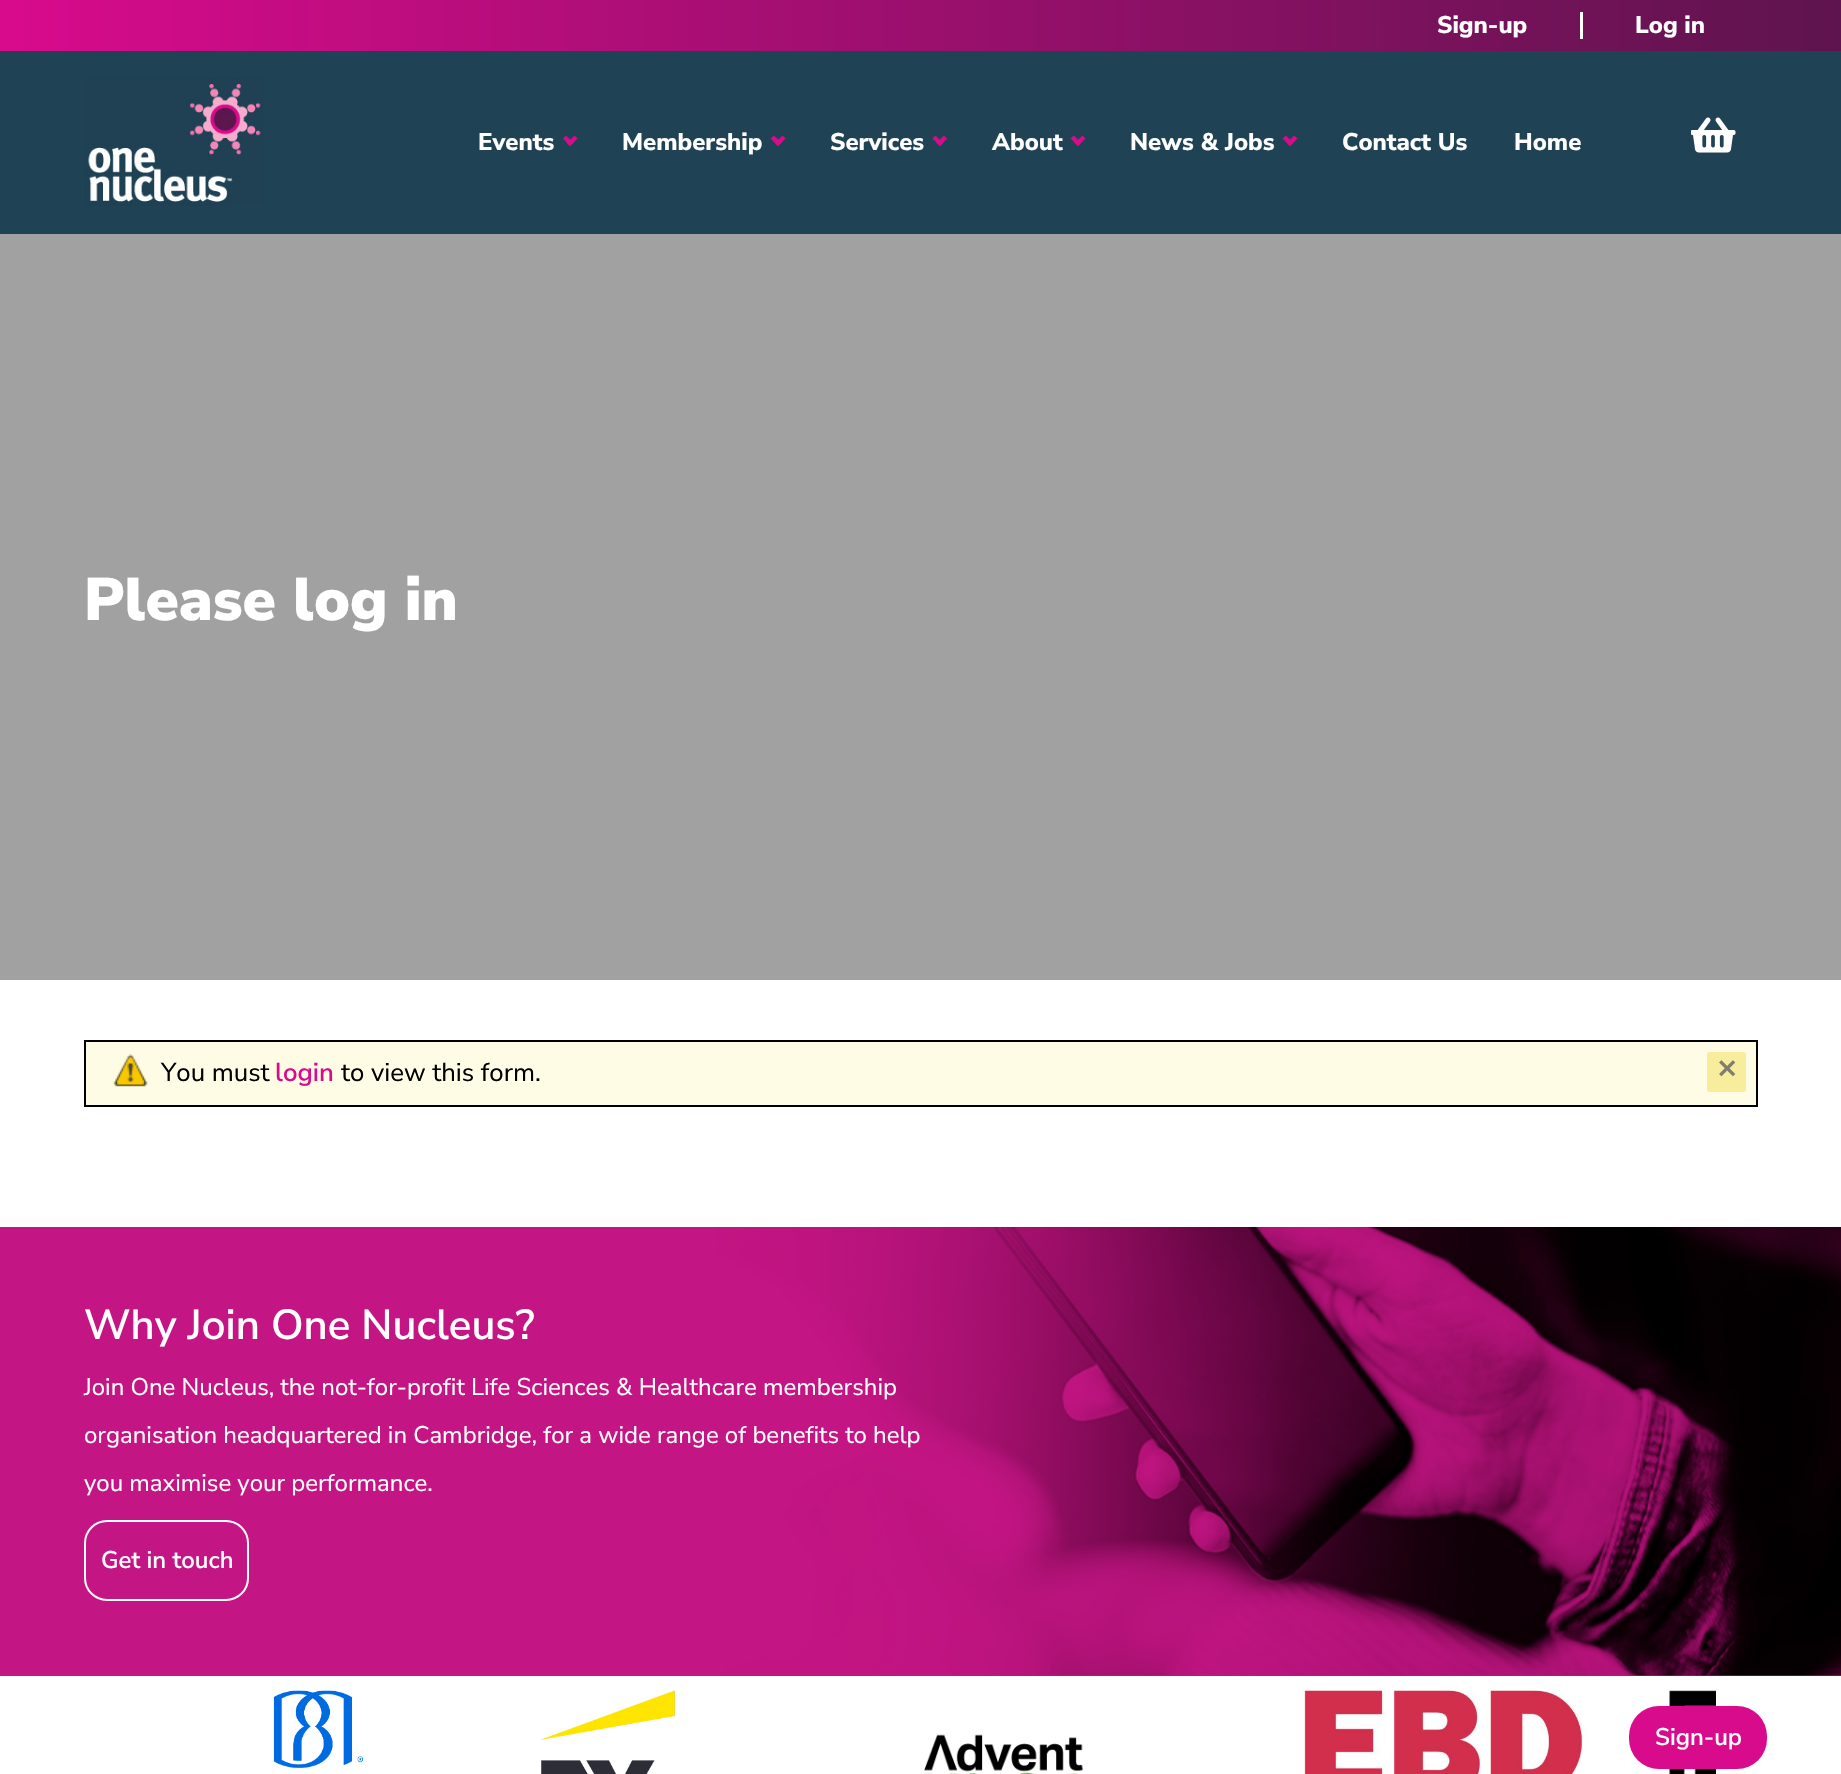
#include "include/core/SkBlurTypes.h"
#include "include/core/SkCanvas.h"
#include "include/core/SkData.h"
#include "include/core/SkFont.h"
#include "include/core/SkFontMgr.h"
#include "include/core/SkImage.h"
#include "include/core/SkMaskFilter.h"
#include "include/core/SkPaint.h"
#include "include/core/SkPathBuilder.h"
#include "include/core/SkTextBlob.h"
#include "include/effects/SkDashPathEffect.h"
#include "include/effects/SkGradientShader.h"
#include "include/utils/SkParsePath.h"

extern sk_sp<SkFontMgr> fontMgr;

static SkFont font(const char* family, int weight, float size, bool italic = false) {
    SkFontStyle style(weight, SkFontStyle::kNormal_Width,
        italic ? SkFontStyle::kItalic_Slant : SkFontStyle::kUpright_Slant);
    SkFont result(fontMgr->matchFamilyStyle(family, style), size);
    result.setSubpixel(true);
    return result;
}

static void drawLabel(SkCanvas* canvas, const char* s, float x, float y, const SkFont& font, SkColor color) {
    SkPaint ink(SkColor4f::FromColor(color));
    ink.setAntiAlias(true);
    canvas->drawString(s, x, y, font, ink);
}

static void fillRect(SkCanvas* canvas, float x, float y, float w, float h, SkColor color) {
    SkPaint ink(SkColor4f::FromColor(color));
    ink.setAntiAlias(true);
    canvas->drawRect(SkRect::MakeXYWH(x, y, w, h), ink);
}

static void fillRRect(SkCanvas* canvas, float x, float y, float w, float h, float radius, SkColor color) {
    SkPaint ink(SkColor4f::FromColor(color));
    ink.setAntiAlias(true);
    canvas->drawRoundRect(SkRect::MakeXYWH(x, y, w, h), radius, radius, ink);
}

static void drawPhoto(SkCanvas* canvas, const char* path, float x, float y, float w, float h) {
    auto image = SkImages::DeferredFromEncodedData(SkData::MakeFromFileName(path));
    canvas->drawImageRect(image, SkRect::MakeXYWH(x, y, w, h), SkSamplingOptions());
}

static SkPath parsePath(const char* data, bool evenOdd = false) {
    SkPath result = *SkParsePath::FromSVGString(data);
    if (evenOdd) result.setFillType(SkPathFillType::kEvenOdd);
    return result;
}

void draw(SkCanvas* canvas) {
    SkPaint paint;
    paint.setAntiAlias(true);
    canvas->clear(0xFFFFFFFF);
    {
        const SkColor colors[] = {0xFFD80B8C, 0xFF5E144E};
        const float stops[] = {0, 1};
        const SkPoint ends[] = {{0, 26}, {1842, 25}};
        paint.setShader(SkGradientShader::MakeLinear(ends, colors, stops, 2, SkTileMode::kClamp));
        paint.setAlpha(255);
    }
    canvas->drawRect(SkRect::MakeXYWH(0, 0, 1841, 51), paint);
    fillRect(canvas, 1580, 12, 3, 27, 0xFFFFFFFF);
    SkFont font1 = font("Nunito Sans", 800, 24);
    drawLabel(canvas, "Sign-up", 1437, 33, font1, 0xFFFFFFFF);
    drawLabel(canvas, "Log in", 1635, 33, font1, 0xFFFFFFFF);
    fillRect(canvas, 0, 51, 1841, 183, 0xFF204255);
    drawPhoto(canvas, "assets/img1.png", 84, 78, 180, 128);
    drawLabel(canvas, "Events", 478, 150, font1, 0xFFFFFFFF);
    paint.setShader(nullptr);
    paint.setColor(0xFFD80B8C);
    canvas->drawPath(parsePath("M574.5 135.5L577.5 138.5L570 146L567 143Z"), paint);
    canvas->drawPath(parsePath("M566 135.5L573.5 143L570 146L563 138.5Z"), paint);
    drawLabel(canvas, "Membership", 622, 150, font1, 0xFFFFFFFF);
    canvas->drawPath(parsePath("M782.5 135.5L785.5 138.5L778 146L775 143Z"), paint);
    canvas->drawPath(parsePath("M774 135.5L781.5 143L778 146L770.5 138.5Z"), paint);
    drawLabel(canvas, "Services", 830, 150, font1, 0xFFFFFFFF);
    canvas->drawPath(parsePath("M944 135.5L947 138.5L940 146L936.5 143Z"), paint);
    canvas->drawPath(parsePath("M935.5 135.5L943 143L940 146L932.5 138.5Z"), paint);
    drawLabel(canvas, "About", 992, 150, font1, 0xFFFFFFFF);
    canvas->drawPath(parsePath("M1082.5 135.5L1085.5 138.5L1078 146L1075 143Z"), paint);
    canvas->drawPath(parsePath("M1074 135.5L1081 143L1078 146L1070.5 138.5Z"), paint);
    drawLabel(canvas, "News & Jobs", 1130, 150, font1, 0xFFFFFFFF);
    canvas->drawPath(parsePath("M1294 135.5L1297.5 138.5L1290 146L1287 143Z"), paint);
    canvas->drawPath(parsePath("M1286 135.5L1293 143L1290 146L1282.5 138.5Z"), paint);
    drawLabel(canvas, "Contact Us", 1342, 150, font1, 0xFFFFFFFF);
    drawLabel(canvas, "Home", 1514, 150, font1, 0xFFFFFFFF);
    drawPhoto(canvas, "assets/img2.png", 1691, 117, 45, 36);
    fillRect(canvas, 0, 234, 1841, 746, 0xFFA1A1A1);
    SkFont font2 = font("Nunito Sans", 900, 60);
    drawLabel(canvas, "Please log in", 84, 620, font2, 0xFFFFFFFF);
    fillRect(canvas, 86, 1042, 1670, 63, 0xFFFFFCE5);
    drawPhoto(canvas, "assets/img3.png", 113, 1054, 35, 33);
    paint.setStroke(true);
    paint.setStrokeWidth(2);
    paint.setColor(0xFF000000);
    canvas->drawRect(SkRect::MakeXYWH(85, 1041, 1672, 65), paint);
    SkFont font3 = font("Nunito Sans", 400, 25.75f);
    drawLabel(canvas, "You must", 161, 1081, font3, 0xFF000000);
    SkFont font4 = font("Nunito Sans", 600, 25.75f);
    drawLabel(canvas, "login", 275, 1081, font4, 0xFFD80B8C);
    drawLabel(canvas, "to view this form.", 341, 1081, font3, 0xFF000000);
    fillRRect(canvas, 1707, 1052, 39, 40, 3, 0xFFF7ED9D);
    SkFont font5 = font("DejaVu Sans", 700, 25.75f);
    drawLabel(canvas, "✕", 1716, 1078, font5, 0xFF807E73);
    fillRect(canvas, 0, 1675, 1841, 1, 0xFFD80B8C);
    drawPhoto(canvas, "assets/img4.png", 0, 1227, 1841, 449);
    SkFont font6 = font("Nunito Sans", 600, 42);
    drawLabel(canvas, "Why Join One Nucleus?", 84, 1339, font6, 0xFFFFFFFF);
    SkFont font7 = font("Nunito Sans", 400, 24);
    drawLabel(canvas, "Join One Nucleus, the not-for-profit Life Sciences & Healthcare membership", 84, 1395, font7, 0xFFFFFFFF);
    drawLabel(canvas, "organisation headquartered in Cambridge, for a wide range of benefits to help", 84, 1443, font7, 0xFFFFFFFF);
    drawLabel(canvas, "you maximise your performance.", 84, 1491, font7, 0xFFFFFFFF);
    paint.setColor(0xFFFFFFFF);
    canvas->drawRoundRect(SkRect::MakeXYWH(85, 1521, 163, 79), 22, 22, paint);
    SkFont font8 = font("Nunito Sans", 600, 24);
    drawLabel(canvas, "Get in touch", 101, 1568, font8, 0xFFFFFFFF);
    drawPhoto(canvas, "assets/img5.png", 273, 1690, 91, 79);
    drawPhoto(canvas, "assets/img6.png", 540, 1690, 135, 84);
    drawPhoto(canvas, "assets/img7.png", 924, 1734, 160, 40);
    drawPhoto(canvas, "assets/img8.png", 1304, 1690, 285, 84);
    drawPhoto(canvas, "assets/img9.png", 1669, 1690, 47, 84);
    fillRRect(canvas, 1629, 1706, 138, 63, 30, 0xFFD80B8C);
    drawLabel(canvas, "Sign-up", 1655, 1745, font8, 0xFFFFFFFF);
}
